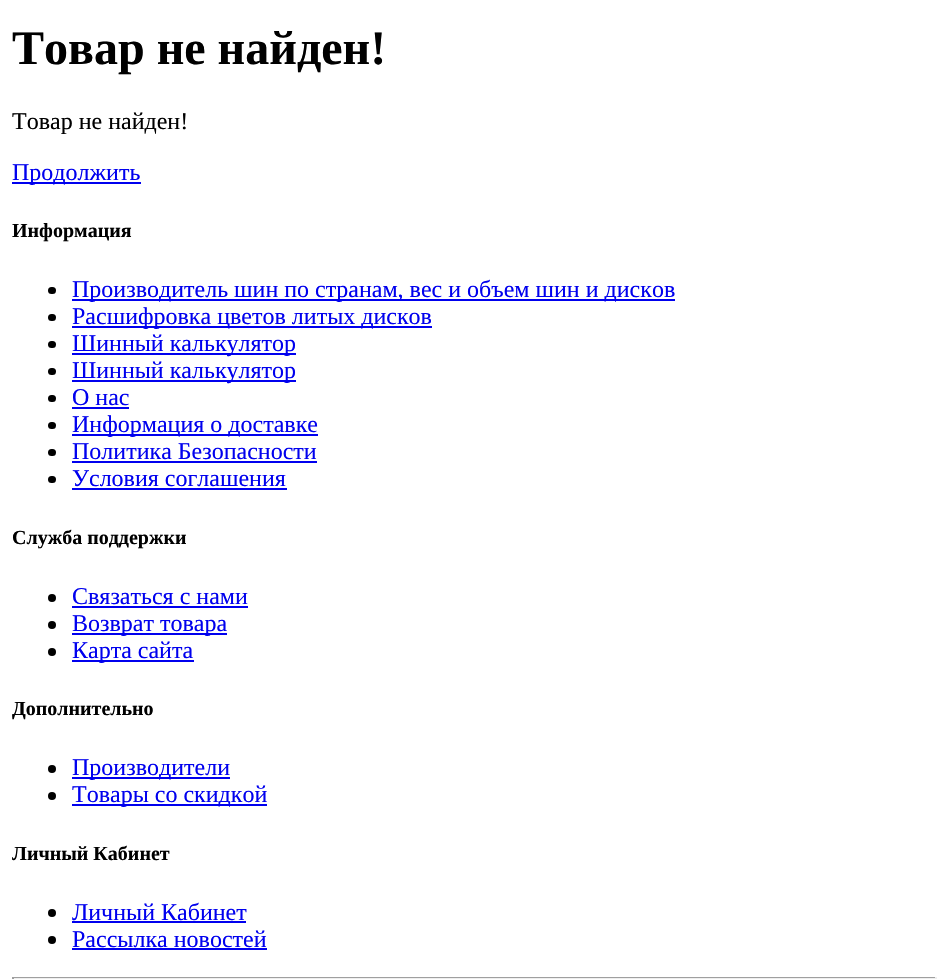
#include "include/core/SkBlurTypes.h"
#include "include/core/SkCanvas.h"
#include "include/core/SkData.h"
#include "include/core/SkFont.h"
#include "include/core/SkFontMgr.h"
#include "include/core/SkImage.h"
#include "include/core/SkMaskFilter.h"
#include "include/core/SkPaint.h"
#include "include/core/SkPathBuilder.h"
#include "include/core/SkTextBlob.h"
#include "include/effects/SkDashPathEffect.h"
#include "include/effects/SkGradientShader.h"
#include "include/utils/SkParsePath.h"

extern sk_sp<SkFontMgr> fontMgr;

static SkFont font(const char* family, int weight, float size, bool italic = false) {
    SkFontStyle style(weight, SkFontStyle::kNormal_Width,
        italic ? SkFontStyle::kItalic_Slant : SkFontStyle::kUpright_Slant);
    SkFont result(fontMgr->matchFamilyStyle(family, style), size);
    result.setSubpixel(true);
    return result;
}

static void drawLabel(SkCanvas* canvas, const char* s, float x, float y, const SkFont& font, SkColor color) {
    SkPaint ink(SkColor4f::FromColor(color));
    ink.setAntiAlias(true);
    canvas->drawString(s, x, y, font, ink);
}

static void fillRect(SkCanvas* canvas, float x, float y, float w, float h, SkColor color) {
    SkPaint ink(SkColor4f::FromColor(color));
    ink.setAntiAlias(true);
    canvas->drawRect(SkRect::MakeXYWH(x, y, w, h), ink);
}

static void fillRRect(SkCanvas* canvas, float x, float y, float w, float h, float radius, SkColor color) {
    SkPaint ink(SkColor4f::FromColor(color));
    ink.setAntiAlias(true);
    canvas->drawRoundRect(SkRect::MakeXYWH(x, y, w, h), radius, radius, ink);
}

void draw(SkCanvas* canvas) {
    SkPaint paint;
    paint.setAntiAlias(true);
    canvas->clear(0xFFFFFFFF);
    SkFont font1 = font("Liberation Serif", 700, 48);
    drawLabel(canvas, "Товар не найден!", 12, 64, font1, 0xFF000000);
    SkFont font2 = font("Liberation Serif", 400, 24);
    drawLabel(canvas, "Товар не найден!", 12, 129, font2, 0xFF000000);
    fillRect(canvas, 12, 182, 129, 2, 0xFF0000EE);
    drawLabel(canvas, "Продолжить", 12, 180, font2, 0xFF0000EE);
    SkFont font3 = font("Liberation Serif", 700, 20);
    drawLabel(canvas, "Информация", 12, 237, font3, 0xFF000000);
    fillRRect(canvas, 48, 287, 8, 7, 3.5f, 0xFF000000);
    fillRect(canvas, 72, 299, 603, 2, 0xFF0000EE);
    drawLabel(canvas, "Производитель шин по странам, вес и объем шин и дисков", 72, 297, font2, 0xFF0000EE);
    fillRRect(canvas, 48, 314, 8, 7, 3.5f, 0xFF000000);
    fillRect(canvas, 72, 326, 360, 2, 0xFF0000EE);
    drawLabel(canvas, "Расшифровка цветов литых дисков", 72, 324, font2, 0xFF0000EE);
    fillRRect(canvas, 48, 341, 8, 7, 3.5f, 0xFF000000);
    fillRect(canvas, 72, 353, 224, 2, 0xFF0000EE);
    drawLabel(canvas, "Шинный калькулятор", 72, 351, font2, 0xFF0000EE);
    fillRRect(canvas, 48, 368, 8, 7, 3.5f, 0xFF000000);
    fillRect(canvas, 72, 380, 224, 2, 0xFF0000EE);
    drawLabel(canvas, "Шинный калькулятор", 72, 378, font2, 0xFF0000EE);
    fillRRect(canvas, 48, 395, 8, 7, 3.5f, 0xFF000000);
    drawLabel(canvas, "О нас", 72, 405, font2, 0xFF0000EE);
    fillRect(canvas, 72, 407, 57, 2, 0xFF0000EE);
    fillRRect(canvas, 48, 422, 8, 7, 3.5f, 0xFF000000);
    fillRect(canvas, 72, 434, 246, 2, 0xFF0000EE);
    drawLabel(canvas, "Информация о доставке", 72, 432, font2, 0xFF0000EE);
    fillRRect(canvas, 48, 449, 8, 7, 3.5f, 0xFF000000);
    drawLabel(canvas, "Политика Безопасности", 72, 459, font2, 0xFF0000EE);
    fillRect(canvas, 72, 461, 245, 2, 0xFF0000EE);
    fillRRect(canvas, 48, 476, 8, 7, 3.5f, 0xFF000000);
    drawLabel(canvas, "Условия соглашения", 72, 486, font2, 0xFF0000EE);
    fillRect(canvas, 72, 488, 215, 2, 0xFF0000EE);
    drawLabel(canvas, "Служба поддержки", 12, 544, font3, 0xFF000000);
    paint.setColor(0xFF000000);
    canvas->drawCircle(52, 598, 4, paint);
    drawLabel(canvas, "Связаться с нами", 72, 604, font2, 0xFF0000EE);
    fillRect(canvas, 72, 606, 176, 2, 0xFF0000EE);
    canvas->drawCircle(52, 625, 4, paint);
    fillRect(canvas, 72, 633, 155, 2, 0xFF0000EE);
    drawLabel(canvas, "Возврат товара", 72, 631, font2, 0xFF0000EE);
    canvas->drawCircle(52, 652, 4, paint);
    fillRect(canvas, 72, 660, 122, 2, 0xFF0000EE);
    drawLabel(canvas, "Карта сайта", 72, 658, font2, 0xFF0000EE);
    drawLabel(canvas, "Дополнительно", 12, 715, font3, 0xFF000000);
    canvas->drawCircle(52, 769, 4, paint);
    fillRect(canvas, 72, 777, 158, 2, 0xFF0000EE);
    drawLabel(canvas, "Производители", 72, 775, font2, 0xFF0000EE);
    canvas->drawCircle(52, 796, 4, paint);
    fillRect(canvas, 72, 804, 195, 2, 0xFF0000EE);
    drawLabel(canvas, "Товары со скидкой", 72, 802, font2, 0xFF0000EE);
    drawLabel(canvas, "Личный Кабинет", 12, 860, font3, 0xFF000000);
    canvas->drawCircle(52, 913, 4, paint);
    drawLabel(canvas, "Личный Кабинет", 72, 920, font2, 0xFF0000EE);
    fillRect(canvas, 72, 921, 174, 2, 0xFF0000EE);
    canvas->drawCircle(52, 940, 4, paint);
    drawLabel(canvas, "Рассылка новостей", 72, 947, font2, 0xFF0000EE);
    fillRect(canvas, 72, 948, 195, 2, 0xFF0000EE);
    fillRect(canvas, 12, 977, 924, 1, 0xFF9F9F9F);
    fillRect(canvas, 935, 977, 2, 2, 0xFFEEEEEE);
    fillRect(canvas, 12, 978, 924, 1, 0xFFEEEEEE);
    fillRect(canvas, 12, 978, 2, 1, 0xFF9F9F9F);
}
